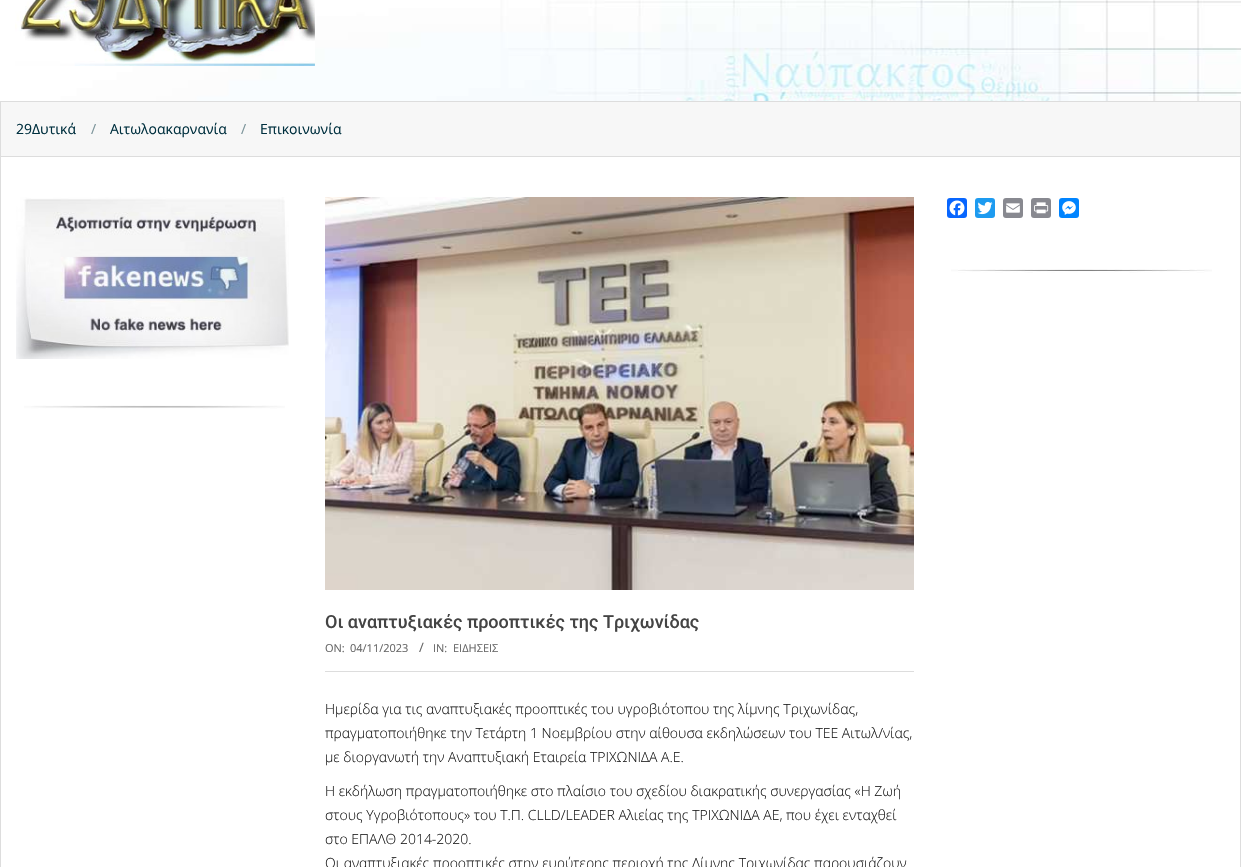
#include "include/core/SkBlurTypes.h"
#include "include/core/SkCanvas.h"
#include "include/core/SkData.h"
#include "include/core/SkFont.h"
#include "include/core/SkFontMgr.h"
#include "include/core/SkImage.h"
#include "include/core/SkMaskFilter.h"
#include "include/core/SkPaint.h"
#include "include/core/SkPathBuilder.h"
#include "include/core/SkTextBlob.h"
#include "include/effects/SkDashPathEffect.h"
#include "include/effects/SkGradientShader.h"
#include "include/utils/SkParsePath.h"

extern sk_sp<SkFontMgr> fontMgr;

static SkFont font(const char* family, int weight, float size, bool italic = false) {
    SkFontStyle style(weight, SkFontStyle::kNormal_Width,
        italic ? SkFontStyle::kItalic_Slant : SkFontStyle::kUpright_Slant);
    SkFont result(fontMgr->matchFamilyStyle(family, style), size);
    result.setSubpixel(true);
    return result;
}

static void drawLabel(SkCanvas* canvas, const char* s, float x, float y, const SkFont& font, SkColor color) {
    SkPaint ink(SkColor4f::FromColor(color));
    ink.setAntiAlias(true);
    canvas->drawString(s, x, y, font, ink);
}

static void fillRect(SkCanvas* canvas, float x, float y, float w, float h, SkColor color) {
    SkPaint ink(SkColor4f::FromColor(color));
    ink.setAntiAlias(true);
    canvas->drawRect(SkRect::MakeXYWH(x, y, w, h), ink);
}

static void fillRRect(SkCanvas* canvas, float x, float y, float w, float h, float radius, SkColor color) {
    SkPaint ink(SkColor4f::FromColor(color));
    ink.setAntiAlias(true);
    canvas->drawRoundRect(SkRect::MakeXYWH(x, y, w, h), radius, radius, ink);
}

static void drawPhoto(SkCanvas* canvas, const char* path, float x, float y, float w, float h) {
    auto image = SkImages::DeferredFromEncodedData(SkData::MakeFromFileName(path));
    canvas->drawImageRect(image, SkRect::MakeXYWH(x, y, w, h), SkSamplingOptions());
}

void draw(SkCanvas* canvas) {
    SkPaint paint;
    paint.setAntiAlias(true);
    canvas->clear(0xFFFFFFFF);
    drawPhoto(canvas, "assets/img1.png", 0, 0, 1241, 101);
    fillRect(canvas, 0, 101, 1241, 1, 0xFFDDDDDD);
    drawPhoto(canvas, "assets/img2.png", 15, 0, 300, 66);
    fillRect(canvas, 1, 102, 1239, 54, 0xFFF7F7F7);
    fillRect(canvas, 1240, 102, 1, 765, 0xFFDDDDDD);
    fillRect(canvas, 0, 156, 1241, 1, 0xFFDDDDDD);
    fillRect(canvas, 0, 102, 1, 765, 0xFFDDDDDD);
    SkFont font1 = font("Open Sans", 400, 14);
    drawLabel(canvas, "29Δυτικά", 16, 134, font1, 0xFF00303F);
    drawLabel(canvas, "/", 91, 134, font1, 0xFF7C949B);
    drawLabel(canvas, "Αιτωλοακαρνανία", 110, 134, font1, 0xFF00303F);
    drawLabel(canvas, "/", 241, 134, font1, 0xFF7C949B);
    drawLabel(canvas, "Επικοινωνία", 260, 134, font1, 0xFF00303F);
    drawPhoto(canvas, "assets/img3.png", 16, 197, 273, 162);
    drawPhoto(canvas, "assets/img4.png", 24, 405, 261, 4);
    fillRRect(canvas, 947, 198, 20, 20, 3, 0xFF0866FF);
    drawPhoto(canvas, "assets/img5.png", 949, 200, 16, 16);
    fillRRect(canvas, 975, 198, 20, 20, 3, 0xFF1D9BF0);
    drawPhoto(canvas, "assets/img6.png", 977, 201, 16, 14);
    fillRRect(canvas, 1003, 198, 20, 20, 3, 0xFF888990);
    drawPhoto(canvas, "assets/img7.png", 1006, 203, 14, 10);
    fillRRect(canvas, 1031, 198, 20, 20, 3, 0xFF888990);
    drawPhoto(canvas, "assets/img8.png", 1034, 202, 15, 12);
    fillRRect(canvas, 1059, 198, 20, 20, 3, 0xFF0084FF);
    drawPhoto(canvas, "assets/img9.png", 1062, 201, 14, 14);
    drawPhoto(canvas, "assets/img10.png", 951, 269, 261, 4);
    drawPhoto(canvas, "assets/img11.png", 325, 197, 589, 393);
    fillRect(canvas, 325, 671, 589, 1, 0xFFDDDDDD);
    SkFont font2 = font("Roboto", 500, 18);
    drawLabel(canvas, "Οι αναπτυξιακές προοπτικές της Τριχωνίδας", 325, 628, font2, 0xFF444444);
    SkFont font3 = font("Open Sans", 400, 11);
    drawLabel(canvas, "ON:", 325, 652, font3, 0xFF666666);
    drawLabel(canvas, "04/11/2023", 350, 652, font3, 0xFF666666);
    SkFont font4 = font("Open Sans", 400, 13);
    drawLabel(canvas, "/", 419, 652, font4, 0xFF666666);
    drawLabel(canvas, "IN:", 433, 652, font3, 0xFF666666);
    drawLabel(canvas, "ΕΙΔΗΣΕΙΣ", 453, 652, font3, 0xFF666666);
    SkFont font5 = font("Open Sans", 300, 14);
    drawLabel(canvas, "Ημερίδα για τις αναπτυξιακές προοπτικές του υγροβιότοπου της λίμνης Τριχωνίδας,", 325, 714, font5, 0xFF1C1C1C);
    drawLabel(canvas, "πραγματοποιήθηκε την Τετάρτη 1 Νοεμβρίου στην αίθουσα εκδηλώσεων του ΤΕΕ Αιτωλ/νίας,", 325, 738, font5, 0xFF1C1C1C);
    drawLabel(canvas, "με διοργανωτή την Αναπτυξιακή Εταιρεία ΤΡΙΧΩΝΙΔΑ Α.Ε.", 325, 762, font5, 0xFF1C1C1C);
    drawLabel(canvas, "Η εκδήλωση πραγματοποιήθηκε στο πλαίσιο του σχεδίου διακρατικής συνεργασίας «Η Ζωή", 325, 796, font5, 0xFF1C1C1C);
    drawLabel(canvas, "στους Υγροβιότοπους» του Τ.Π. CLLD/LEADER Αλιείας της ΤΡΙΧΩΝΙΔΑ ΑΕ, που έχει ενταχθεί", 325, 820, font5, 0xFF1C1C1C);
    drawLabel(canvas, "στο ΕΠΑΛΘ 2014-2020.", 325, 844, font5, 0xFF1C1C1C);
    drawLabel(canvas, "Οι αναπτυξιακές προοπτικές στην ευρύτερης περιοχή της Λίμνης Τριχωνίδας παρουσιάζουν", 325, 868, font5, 0xFF1C1C1C);
}
